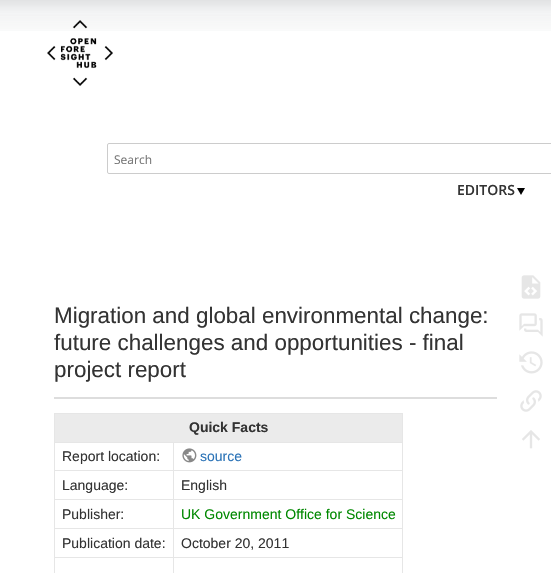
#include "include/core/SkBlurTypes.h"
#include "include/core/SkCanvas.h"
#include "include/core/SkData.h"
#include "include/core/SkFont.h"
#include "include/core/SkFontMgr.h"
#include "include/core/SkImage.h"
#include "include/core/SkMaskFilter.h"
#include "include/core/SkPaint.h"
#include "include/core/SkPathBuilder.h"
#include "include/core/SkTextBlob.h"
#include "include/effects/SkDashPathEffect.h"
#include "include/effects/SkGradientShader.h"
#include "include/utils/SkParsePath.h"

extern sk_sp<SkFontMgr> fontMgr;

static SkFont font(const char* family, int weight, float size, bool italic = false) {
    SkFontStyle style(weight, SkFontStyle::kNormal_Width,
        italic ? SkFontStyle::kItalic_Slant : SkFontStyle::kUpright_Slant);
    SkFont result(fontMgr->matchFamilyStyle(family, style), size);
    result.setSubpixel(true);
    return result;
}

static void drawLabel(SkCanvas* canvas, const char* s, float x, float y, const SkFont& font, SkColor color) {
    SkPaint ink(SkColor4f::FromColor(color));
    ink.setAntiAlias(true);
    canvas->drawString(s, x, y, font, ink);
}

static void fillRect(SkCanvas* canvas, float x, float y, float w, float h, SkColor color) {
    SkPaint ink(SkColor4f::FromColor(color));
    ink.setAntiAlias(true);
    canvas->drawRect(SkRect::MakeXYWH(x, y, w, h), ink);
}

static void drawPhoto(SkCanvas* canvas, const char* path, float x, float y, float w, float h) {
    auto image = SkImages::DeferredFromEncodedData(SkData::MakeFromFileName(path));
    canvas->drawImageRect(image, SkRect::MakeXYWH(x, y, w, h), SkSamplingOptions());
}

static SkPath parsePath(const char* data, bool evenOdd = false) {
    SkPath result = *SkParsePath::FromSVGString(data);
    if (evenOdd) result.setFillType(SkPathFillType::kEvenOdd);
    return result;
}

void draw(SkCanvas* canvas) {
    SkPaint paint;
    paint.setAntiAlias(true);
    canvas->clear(0xFFFFFFFF);
    drawPhoto(canvas, "assets/img1.png", 0, 0, 551, 31);
    drawPhoto(canvas, "assets/img2.png", 47, 20, 66, 66);
    paint.setStroke(true);
    paint.setStrokeWidth(1);
    paint.setColor(0xFFCCCCCC);
    canvas->drawRoundRect(SkRect::MakeXYWH(107.5f, 143.5f, 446, 30), 1.5f, 1.5f, paint);
    SkFont font1 = font("Open Sans", 400, 12);
    drawLabel(canvas, "Search", 114, 164, font1, 0xFF757575);
    SkFont font2 = font("Open Sans", 600, 14);
    drawLabel(canvas, "EDITORS", 457, 195, font2, 0xFF333333);
    paint.setStroke(false);
    paint.setColor(0xFF000000);
    canvas->drawPath(parsePath("M517 188H525L521 195Z"), paint);
    SkFont font3 = font("Liberation Sans", 400, 22.4f);
    drawLabel(canvas, "Migration and global environmental change:", 54, 323, font3, 0xFF333333);
    drawLabel(canvas, "future challenges and opportunities - final", 54, 350, font3, 0xFF333333);
    drawLabel(canvas, "project report", 54, 377, font3, 0xFF333333);
    fillRect(canvas, 54, 397, 443, 2, 0xFFDDDDDD);
    fillRect(canvas, 54, 413, 349, 1, 0xFFE6E6E6);
    fillRect(canvas, 402, 413, 1, 160, 0xFFE6E6E6);
    fillRect(canvas, 54, 413, 1, 160, 0xFFE6E6E6);
    fillRect(canvas, 55, 414, 347, 28, 0xFFEBEBEB);
    SkFont font4 = font("Liberation Sans", 700, 14);
    drawLabel(canvas, "Quick Facts", 189, 432, font4, 0xFF333333);
    fillRect(canvas, 173, 442, 230, 1, 0xFFE6E6E6);
    fillRect(canvas, 173, 470, 230, 1, 0xFFE6E6E6);
    fillRect(canvas, 173, 499, 230, 1, 0xFFE6E6E6);
    fillRect(canvas, 173, 528, 230, 1, 0xFFE6E6E6);
    fillRect(canvas, 173, 557, 230, 1, 0xFFE6E6E6);
    fillRect(canvas, 173, 557, 1, 16, 0xFFE6E6E6);
    fillRect(canvas, 54, 557, 120, 1, 0xFFE6E6E6);
    fillRect(canvas, 173, 528, 1, 30, 0xFFE6E6E6);
    fillRect(canvas, 54, 528, 120, 1, 0xFFE6E6E6);
    fillRect(canvas, 173, 499, 1, 30, 0xFFE6E6E6);
    fillRect(canvas, 54, 499, 120, 1, 0xFFE6E6E6);
    fillRect(canvas, 173, 470, 1, 30, 0xFFE6E6E6);
    fillRect(canvas, 54, 470, 120, 1, 0xFFE6E6E6);
    fillRect(canvas, 173, 442, 1, 29, 0xFFE6E6E6);
    fillRect(canvas, 54, 442, 120, 1, 0xFFE6E6E6);
    SkFont font5 = font("Liberation Sans", 400, 14);
    drawLabel(canvas, "Report location:", 62, 461, font5, 0xFF333333);
    drawPhoto(canvas, "assets/img3.png", 182, 448, 15, 15);
    drawLabel(canvas, "source", 200, 461, font5, 0xFF2B73B7);
    drawLabel(canvas, "Language:", 62, 490, font5, 0xFF333333);
    drawLabel(canvas, "English", 181, 490, font5, 0xFF333333);
    drawLabel(canvas, "Publisher:", 62, 519, font5, 0xFF333333);
    drawLabel(canvas, "UK Government Office for Science", 181, 519, font5, 0xFF008800);
    drawLabel(canvas, "Publication date:", 62, 548, font5, 0xFF333333);
    drawLabel(canvas, "October 20, 2011", 181, 548, font5, 0xFF333333);
    drawPhoto(canvas, "assets/img4.png", 521, 275, 20, 24);
    drawPhoto(canvas, "assets/img5.png", 519, 313, 24, 24);
    drawPhoto(canvas, "assets/img6.png", 519, 351, 24, 23);
    drawPhoto(canvas, "assets/img7.png", 520, 390, 22, 22);
    drawPhoto(canvas, "assets/img8.png", 522, 430, 18, 19);
}
